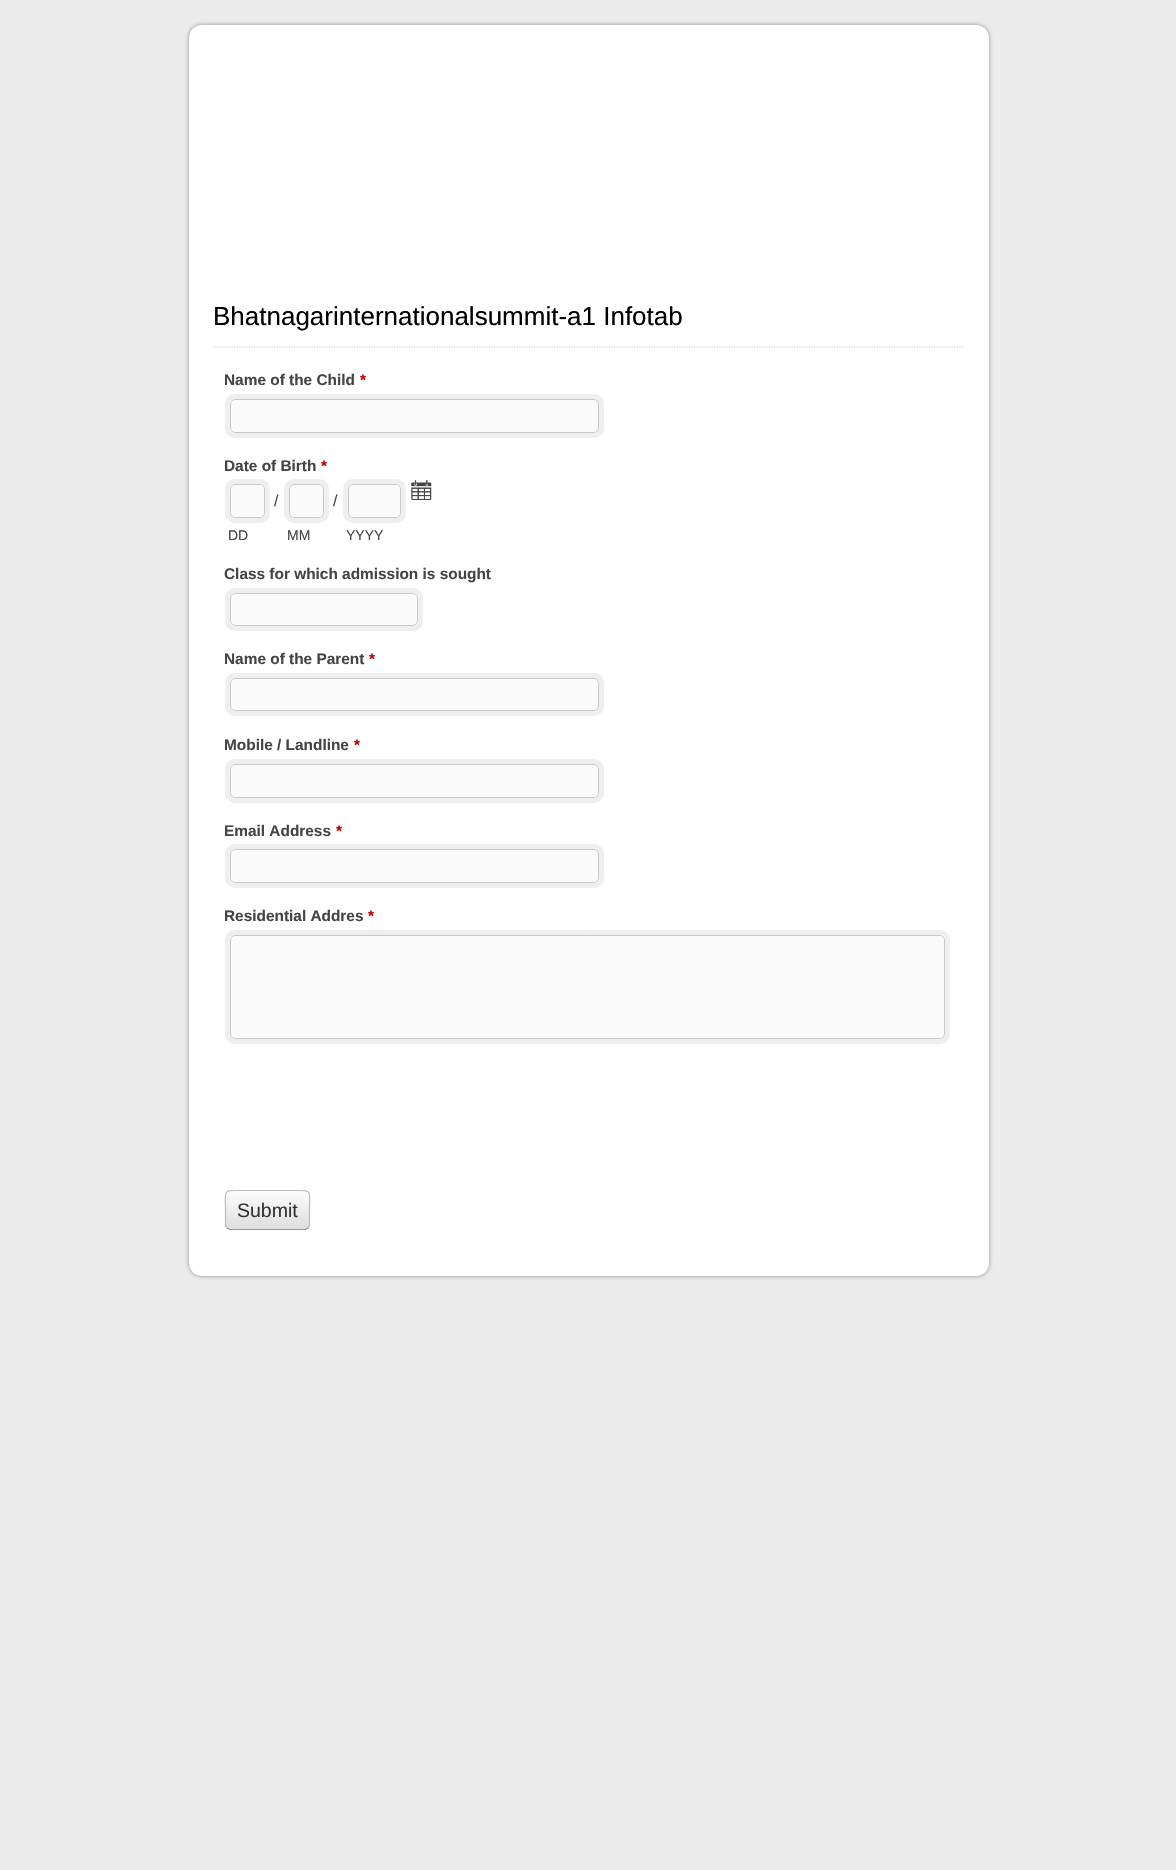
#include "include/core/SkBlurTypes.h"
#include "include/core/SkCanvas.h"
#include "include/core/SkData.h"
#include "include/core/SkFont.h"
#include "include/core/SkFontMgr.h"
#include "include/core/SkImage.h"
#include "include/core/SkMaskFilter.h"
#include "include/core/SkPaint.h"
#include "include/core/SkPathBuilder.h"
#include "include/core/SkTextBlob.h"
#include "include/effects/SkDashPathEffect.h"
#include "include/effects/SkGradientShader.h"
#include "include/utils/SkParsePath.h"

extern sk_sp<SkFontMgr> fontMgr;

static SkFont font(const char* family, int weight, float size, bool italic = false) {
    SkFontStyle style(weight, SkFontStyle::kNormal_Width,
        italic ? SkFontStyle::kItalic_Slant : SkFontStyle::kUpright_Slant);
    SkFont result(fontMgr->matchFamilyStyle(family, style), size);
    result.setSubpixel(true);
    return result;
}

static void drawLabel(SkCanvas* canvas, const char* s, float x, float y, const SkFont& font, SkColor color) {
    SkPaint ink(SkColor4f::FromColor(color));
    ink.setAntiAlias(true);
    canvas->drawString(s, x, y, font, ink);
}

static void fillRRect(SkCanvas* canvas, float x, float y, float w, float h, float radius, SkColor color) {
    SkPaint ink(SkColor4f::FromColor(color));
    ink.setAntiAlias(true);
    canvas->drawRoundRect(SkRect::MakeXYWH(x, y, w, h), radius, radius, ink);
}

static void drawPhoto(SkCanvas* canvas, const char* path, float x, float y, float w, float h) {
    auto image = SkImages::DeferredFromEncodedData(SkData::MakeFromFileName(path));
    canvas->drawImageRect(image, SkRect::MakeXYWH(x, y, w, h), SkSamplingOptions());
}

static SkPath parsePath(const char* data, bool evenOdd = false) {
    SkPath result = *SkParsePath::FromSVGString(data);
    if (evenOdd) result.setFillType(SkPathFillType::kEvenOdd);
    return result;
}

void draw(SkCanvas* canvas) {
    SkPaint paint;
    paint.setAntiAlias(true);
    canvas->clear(0xFFECECEC);
    paint.setColor(0x66000000);
    paint.setMaskFilter(SkMaskFilter::MakeBlur(kNormal_SkBlurStyle, 2));
    canvas->drawRoundRect(SkRect::MakeXYWH(189, 25, 800, 1251), 13, 13, paint);
    paint.setMaskFilter(nullptr);
    fillRRect(canvas, 189, 25, 800, 1251, 13, 0xFFFFFFFF);
    paint.setStroke(true);
    paint.setStrokeWidth(1.2f);
    paint.setColor(0xFFCCCCCC);
    paint.setPathEffect(SkDashPathEffect::Make({{1.25f, 1.25f}}, 0));
    canvas->drawPath(parsePath("M214 347H964"), paint);
    paint.setPathEffect(nullptr);
    SkFont font1 = font("Liberation Sans", 400, 26);
    drawLabel(canvas, "Bhatnagarinternationalsummit-a1 Infotab", 213, 325, font1, 0xFF000000);
    SkFont font2 = font("Liberation Sans", 700, 15.4f);
    drawLabel(canvas, "Name of the Child", 224, 385, font2, 0xFF444444);
    drawLabel(canvas, "*", 360, 385, font2, 0xFFC10000);
    fillRRect(canvas, 225, 394, 379, 44, 10, 0xFFFBFBFB);
    paint.setStrokeWidth(1);
    paint.setColor(0xFFC9C9C9);
    canvas->drawRoundRect(SkRect::MakeXYWH(230.5f, 399.5f, 368, 33), 4.5f, 4.5f, paint);
    paint.setStrokeWidth(5);
    paint.setColor(0xFFEFEFEF);
    canvas->drawRoundRect(SkRect::MakeXYWH(227.5f, 396.5f, 374, 39), 7.5f, 7.5f, paint);
    drawLabel(canvas, "Date of Birth", 224, 471, font2, 0xFF444444);
    drawLabel(canvas, "*", 321, 471, font2, 0xFFC10000);
    drawPhoto(canvas, "assets/img1.png", 411, 480, 21, 20);
    fillRRect(canvas, 225, 479, 45, 44, 10, 0xFFFBFBFB);
    paint.setStrokeWidth(1);
    paint.setColor(0xFFC9C9C9);
    canvas->drawRoundRect(SkRect::MakeXYWH(230.5f, 484.5f, 34, 33), 4.5f, 4.5f, paint);
    paint.setStrokeWidth(5);
    paint.setColor(0xFFEFEFEF);
    canvas->drawRoundRect(SkRect::MakeXYWH(227.5f, 481.5f, 40, 39), 7.5f, 7.5f, paint);
    SkFont font3 = font("Liberation Sans", 400, 16);
    drawLabel(canvas, "/", 274, 506, font3, 0xFF444444);
    SkFont font4 = font("Liberation Sans", 400, 14);
    drawLabel(canvas, "DD", 228, 540, font4, 0xFF444444);
    fillRRect(canvas, 284, 479, 45, 44, 10, 0xFFFBFBFB);
    paint.setStrokeWidth(1);
    paint.setColor(0xFFC9C9C9);
    canvas->drawRoundRect(SkRect::MakeXYWH(289.5f, 484.5f, 34, 33), 4.5f, 4.5f, paint);
    paint.setStrokeWidth(5);
    paint.setColor(0xFFEFEFEF);
    canvas->drawRoundRect(SkRect::MakeXYWH(286.5f, 481.5f, 40, 39), 7.5f, 7.5f, paint);
    drawLabel(canvas, "/", 333, 506, font3, 0xFF444444);
    drawLabel(canvas, "MM", 287, 540, font4, 0xFF444444);
    fillRRect(canvas, 343, 479, 63, 44, 10, 0xFFFBFBFB);
    paint.setStrokeWidth(1);
    paint.setColor(0xFFC9C9C9);
    canvas->drawRoundRect(SkRect::MakeXYWH(348.5f, 484.5f, 52, 33), 4.5f, 4.5f, paint);
    paint.setStrokeWidth(5);
    paint.setColor(0xFFEFEFEF);
    canvas->drawRoundRect(SkRect::MakeXYWH(345.5f, 481.5f, 58, 39), 7.5f, 7.5f, paint);
    drawLabel(canvas, "YYYY", 346, 540, font4, 0xFF444444);
    drawLabel(canvas, "Class for which admission is sought", 224, 579, font2, 0xFF444444);
    fillRRect(canvas, 225, 588, 198, 43, 10, 0xFFFBFBFB);
    paint.setStrokeWidth(1);
    paint.setColor(0xFFC9C9C9);
    canvas->drawRoundRect(SkRect::MakeXYWH(230.5f, 593.5f, 187, 32), 4.5f, 4.5f, paint);
    paint.setStrokeWidth(5);
    paint.setColor(0xFFEFEFEF);
    canvas->drawRoundRect(SkRect::MakeXYWH(227.5f, 590.5f, 193, 38), 7.5f, 7.5f, paint);
    drawLabel(canvas, "Name of the Parent", 224, 664, font2, 0xFF444444);
    drawLabel(canvas, "*", 369, 664, font2, 0xFFC10000);
    fillRRect(canvas, 225, 673, 379, 43, 10, 0xFFFBFBFB);
    paint.setStrokeWidth(1);
    paint.setColor(0xFFC9C9C9);
    canvas->drawRoundRect(SkRect::MakeXYWH(230.5f, 678.5f, 368, 32), 4.5f, 4.5f, paint);
    paint.setStrokeWidth(5);
    paint.setColor(0xFFEFEFEF);
    canvas->drawRoundRect(SkRect::MakeXYWH(227.5f, 675.5f, 374, 38), 7.5f, 7.5f, paint);
    drawLabel(canvas, "Mobile / Landline", 224, 750, font2, 0xFF444444);
    drawLabel(canvas, "*", 354, 750, font2, 0xFFC10000);
    fillRRect(canvas, 225, 759, 379, 44, 10, 0xFFFBFBFB);
    paint.setStrokeWidth(1);
    paint.setColor(0xFFC9C9C9);
    canvas->drawRoundRect(SkRect::MakeXYWH(230.5f, 764.5f, 368, 33), 4.5f, 4.5f, paint);
    paint.setStrokeWidth(5);
    paint.setColor(0xFFEFEFEF);
    canvas->drawRoundRect(SkRect::MakeXYWH(227.5f, 761.5f, 374, 39), 7.5f, 7.5f, paint);
    drawLabel(canvas, "Email Address", 224, 836, font2, 0xFF444444);
    drawLabel(canvas, "*", 336, 836, font2, 0xFFC10000);
    fillRRect(canvas, 225, 844, 379, 44, 10, 0xFFFBFBFB);
    paint.setStrokeWidth(1);
    paint.setColor(0xFFC9C9C9);
    canvas->drawRoundRect(SkRect::MakeXYWH(230.5f, 849.5f, 368, 33), 4.5f, 4.5f, paint);
    paint.setStrokeWidth(5);
    paint.setColor(0xFFEFEFEF);
    canvas->drawRoundRect(SkRect::MakeXYWH(227.5f, 846.5f, 374, 39), 7.5f, 7.5f, paint);
    drawLabel(canvas, "Residential Addres", 224, 921, font2, 0xFF444444);
    drawLabel(canvas, "*", 368, 921, font2, 0xFFC10000);
    fillRRect(canvas, 225, 930, 725, 114, 10, 0xFFFBFBFB);
    paint.setStrokeWidth(1);
    paint.setColor(0xFFC9C9C9);
    canvas->drawRoundRect(SkRect::MakeXYWH(230.5f, 935.5f, 714, 103), 4.5f, 4.5f, paint);
    paint.setStrokeWidth(5);
    paint.setColor(0xFFEFEFEF);
    canvas->drawRoundRect(SkRect::MakeXYWH(227.5f, 932.5f, 720, 109), 7.5f, 7.5f, paint);
    paint.setStroke(false);
    paint.setColor(0xFFF8F8F8);
    canvas->drawPath(parsePath("M225 1225C225 1234 237 1231 242 1231H292C298 1231 310 1234 310 1225C310 1228 308 1230 305 1230H230C227 1230 225 1228 225 1225Z"), paint);
    canvas->save();
    canvas->clipPath(parsePath("M230 1190H305C308 1190 310 1192 310 1195V1225C310 1228 308 1230 305 1230H230C227 1230 225 1228 225 1225V1195C225 1192 227 1190 230 1190Z"), true);
    {
        const SkColor colors[] = {0xFFFEFEFE, 0xFFDDDDDD};
        const float stops[] = {0, 1};
        const SkPoint ends[] = {{226, 1154}, {226, 1191}};
        paint.setShader(SkGradientShader::MakeLinear(ends, colors, stops, 2, SkTileMode::kClamp));
        paint.setAlpha(255);
    }
    canvas->drawRect(SkRect::MakeXYWH(225, 1190, 85, 1), paint);
    {
        const SkColor colors[] = {0xFFFEFEFE, 0xFFDDDDDD};
        const float stops[] = {0, 1};
        const SkPoint ends[] = {{226, 1191}, {226, 1229}};
        paint.setShader(SkGradientShader::MakeLinear(ends, colors, stops, 2, SkTileMode::kClamp));
        paint.setAlpha(255);
    }
    canvas->drawRect(SkRect::MakeXYWH(225, 1191, 85, 38), paint);
    canvas->restore();
    paint.setStroke(true);
    paint.setStrokeWidth(1.2f);
    paint.setShader(nullptr);
    paint.setColor(0xFF999999);
    canvas->drawPath(parsePath("M308 1228L305.5 1229.5H229.5L227 1228"), paint);
    paint.setColor(0xFFBBBBBB);
    canvas->drawPath(parsePath("M227 1228C225 1226 225.5 1222.5 225.5 1220V1210C225.5 1189 222 1190.5 242.5 1190.5H292.5C313 1190.5 309.5 1189 309.5 1210V1220C309.5 1222.5 310 1226 308 1228"), paint);
    SkFont font5 = font("Liberation Sans", 400, 19.5f);
    drawLabel(canvas, "Submit", 237, 1217, font5, 0xFF333333);
}
